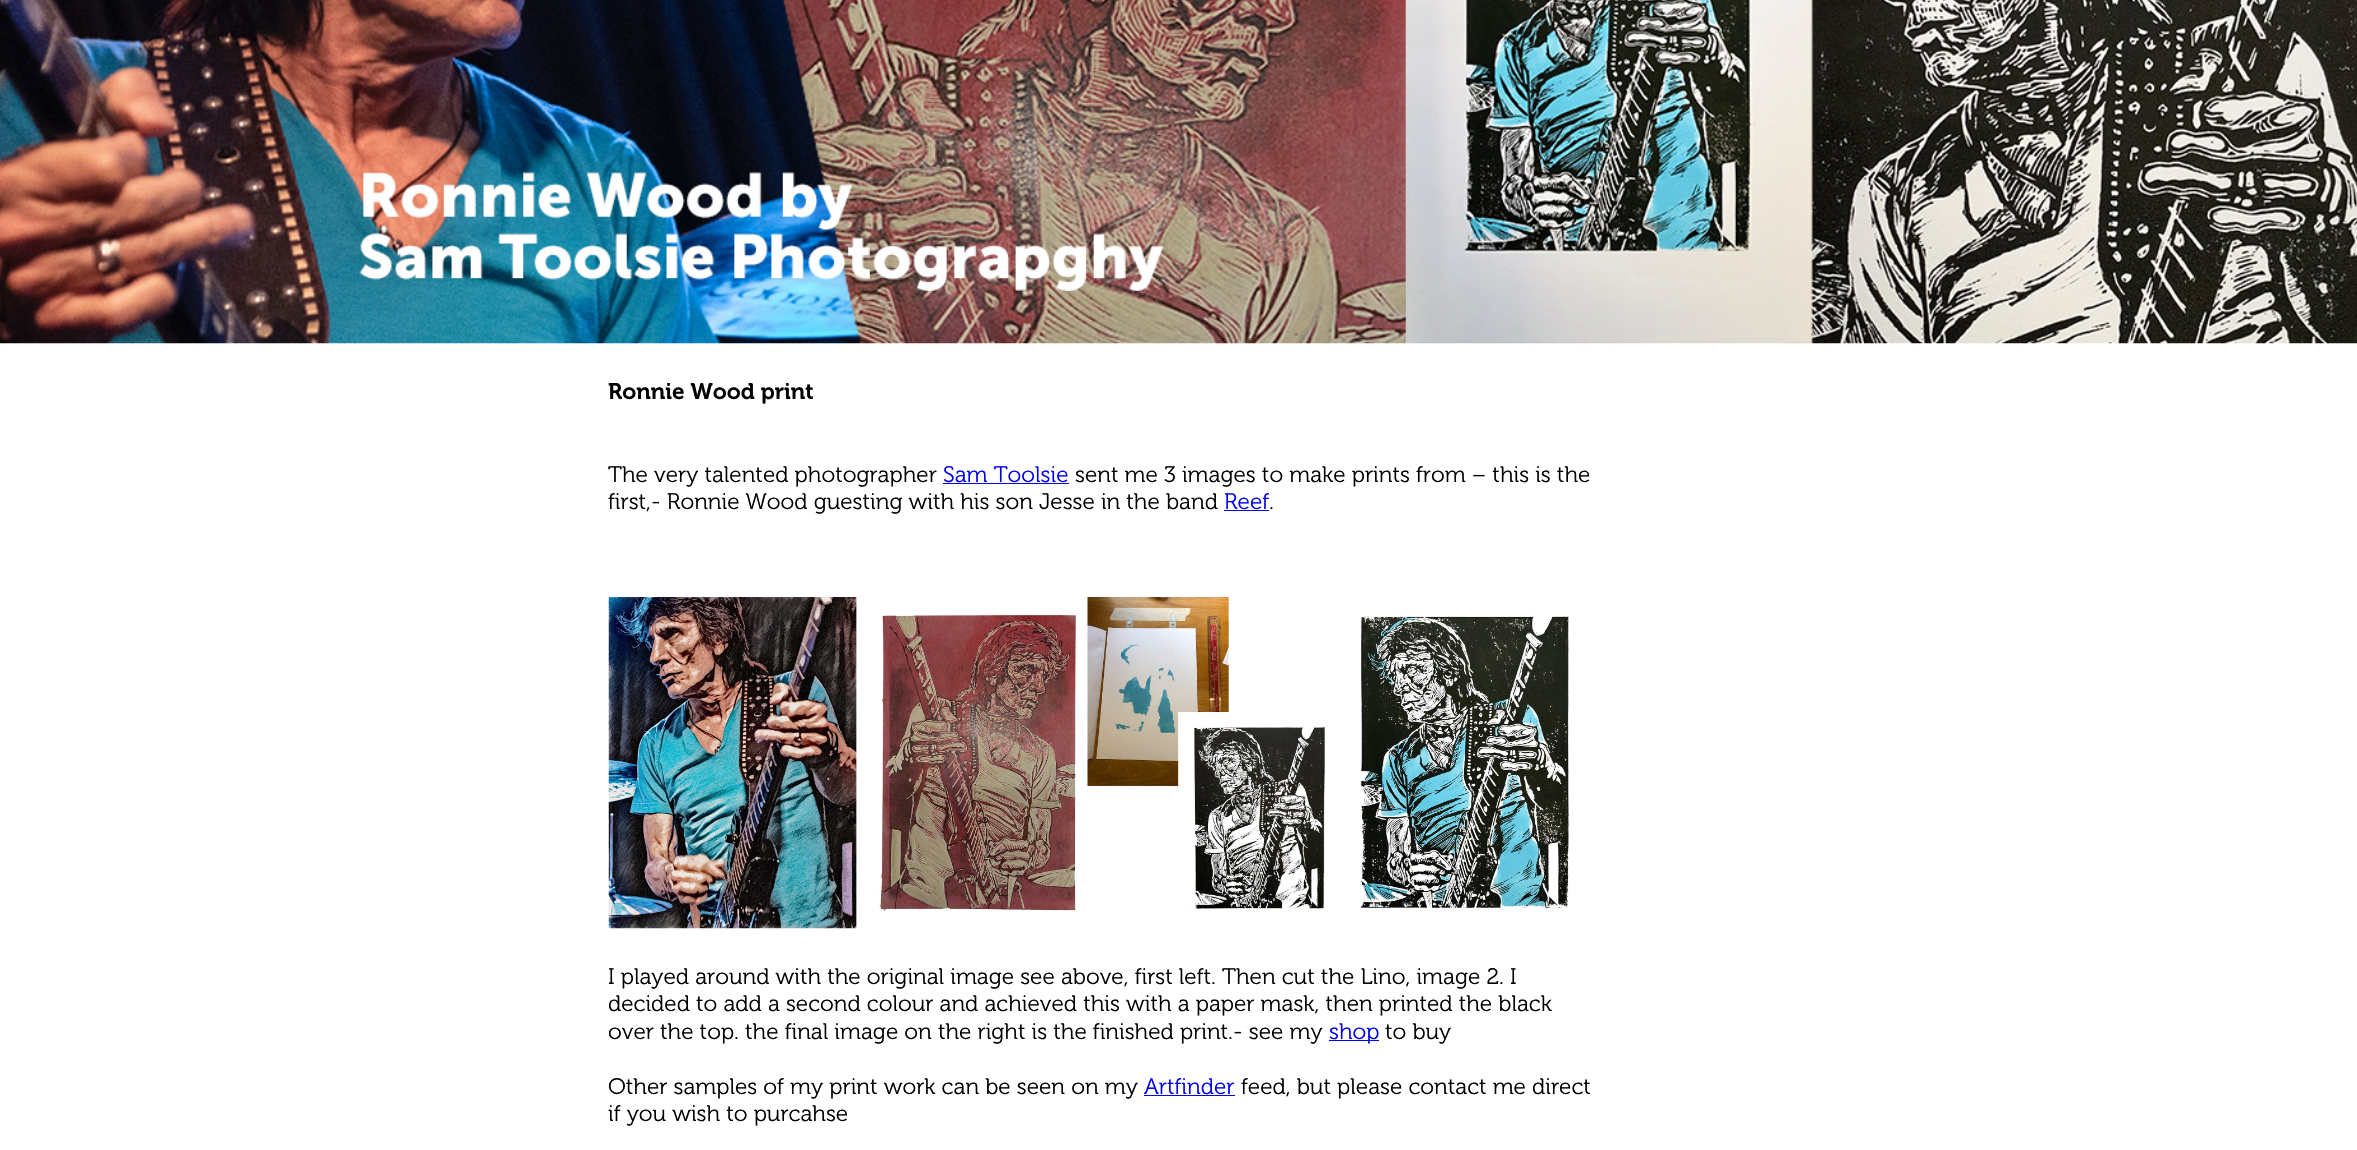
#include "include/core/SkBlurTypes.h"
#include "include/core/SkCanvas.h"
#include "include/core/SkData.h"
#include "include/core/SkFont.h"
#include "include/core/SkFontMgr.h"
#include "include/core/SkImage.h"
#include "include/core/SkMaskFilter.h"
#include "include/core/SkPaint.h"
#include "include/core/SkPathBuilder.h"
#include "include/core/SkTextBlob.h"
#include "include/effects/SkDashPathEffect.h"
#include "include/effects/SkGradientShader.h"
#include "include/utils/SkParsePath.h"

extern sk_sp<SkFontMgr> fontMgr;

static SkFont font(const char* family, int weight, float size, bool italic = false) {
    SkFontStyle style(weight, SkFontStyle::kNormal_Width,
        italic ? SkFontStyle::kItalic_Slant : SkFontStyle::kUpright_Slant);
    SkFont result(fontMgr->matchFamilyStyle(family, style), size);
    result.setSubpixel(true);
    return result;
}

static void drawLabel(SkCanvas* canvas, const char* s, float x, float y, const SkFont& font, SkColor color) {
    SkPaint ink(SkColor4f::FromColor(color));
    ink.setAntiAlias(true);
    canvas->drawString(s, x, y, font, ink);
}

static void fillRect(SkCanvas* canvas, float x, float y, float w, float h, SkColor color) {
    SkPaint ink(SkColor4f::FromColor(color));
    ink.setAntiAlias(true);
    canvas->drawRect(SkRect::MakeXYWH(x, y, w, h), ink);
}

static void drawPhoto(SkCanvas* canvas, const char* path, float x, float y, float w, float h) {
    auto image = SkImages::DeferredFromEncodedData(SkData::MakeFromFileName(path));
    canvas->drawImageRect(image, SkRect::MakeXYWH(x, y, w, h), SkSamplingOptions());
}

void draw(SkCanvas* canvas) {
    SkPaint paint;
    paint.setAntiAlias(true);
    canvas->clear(0xFFFFFFFF);
    drawPhoto(canvas, "assets/img1.png", 0, 0, 2357, 344);
    SkFont font1 = font("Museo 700", 600, 22.5f);
    drawLabel(canvas, "Ronnie Wood print", 608, 399, font1, 0xFF000000);
    SkFont font2 = font("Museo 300", 300, 22.5f);
    drawLabel(canvas, "The very talented photographer", 608, 482, font2, 0xFF000000);
    drawLabel(canvas, "Sam Toolsie", 943, 482, font2, 0xFF0000EE);
    fillRect(canvas, 943, 483, 126, 1, 0xFF0000EE);
    drawLabel(canvas, "sent me 3 images to make prints from – this is the", 1075, 482, font2, 0xFF000000);
    drawLabel(canvas, "first,- Ronnie Wood guesting with his son Jesse in the band", 608, 509, font2, 0xFF000000);
    drawLabel(canvas, "Reef", 1224, 509, font2, 0xFF0000EE);
    fillRect(canvas, 1224, 510, 45, 1, 0xFF0000EE);
    drawLabel(canvas, ".", 1269, 509, font2, 0xFF000000);
    drawPhoto(canvas, "assets/img2.png", 608, 597, 961, 332);
    drawLabel(canvas, "I played around with the original image see above, first left. Then cut the Lino, image 2. I", 608, 984, font2, 0xFF000000);
    drawLabel(canvas, "decided to add a second colour and achieved this with a paper mask, then printed the black", 608, 1011, font2, 0xFF000000);
    drawLabel(canvas, "over the top. the final image on the right is the finished print.- see my", 608, 1039, font2, 0xFF000000);
    fillRect(canvas, 1329, 1040, 50, 1, 0xFF0000EE);
    drawLabel(canvas, "shop", 1329, 1039, font2, 0xFF0000EE);
    drawLabel(canvas, "to buy", 1385, 1039, font2, 0xFF000000);
    drawLabel(canvas, "Other samples of my print work can be seen on my", 608, 1094, font2, 0xFF000000);
    drawLabel(canvas, "Artfinder", 1144, 1094, font2, 0xFF0000EE);
    fillRect(canvas, 1144, 1095, 91, 1, 0xFF0000EE);
    drawLabel(canvas, "feed, but please contact me direct", 1241, 1094, font2, 0xFF000000);
    drawLabel(canvas, "if you wish to purcahse", 608, 1121, font2, 0xFF000000);
}
